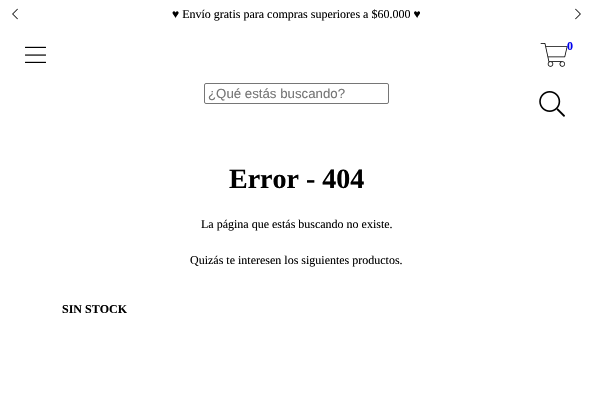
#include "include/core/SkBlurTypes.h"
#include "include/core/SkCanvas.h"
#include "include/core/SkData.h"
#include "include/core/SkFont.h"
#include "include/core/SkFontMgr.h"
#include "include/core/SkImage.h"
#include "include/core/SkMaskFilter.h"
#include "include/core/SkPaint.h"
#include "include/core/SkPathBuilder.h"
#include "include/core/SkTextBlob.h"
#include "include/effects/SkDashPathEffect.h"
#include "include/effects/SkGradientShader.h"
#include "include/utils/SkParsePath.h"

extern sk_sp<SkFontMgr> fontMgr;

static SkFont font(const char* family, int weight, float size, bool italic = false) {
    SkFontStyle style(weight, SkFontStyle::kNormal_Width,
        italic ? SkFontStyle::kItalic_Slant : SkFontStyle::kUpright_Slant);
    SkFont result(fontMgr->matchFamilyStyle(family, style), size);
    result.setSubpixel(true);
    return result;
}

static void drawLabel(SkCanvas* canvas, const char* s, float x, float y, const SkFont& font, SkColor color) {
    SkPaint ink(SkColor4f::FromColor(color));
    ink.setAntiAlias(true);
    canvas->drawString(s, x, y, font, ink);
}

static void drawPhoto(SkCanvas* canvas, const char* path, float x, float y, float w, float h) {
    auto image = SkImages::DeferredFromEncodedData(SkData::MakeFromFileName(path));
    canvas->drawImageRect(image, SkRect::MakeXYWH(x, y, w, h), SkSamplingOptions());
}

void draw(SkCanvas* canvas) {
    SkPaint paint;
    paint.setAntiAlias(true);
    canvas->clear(0xFFFFFFFF);
    drawPhoto(canvas, "assets/img1.png", 12, 8, 6, 12);
    SkFont font1 = font("Liberation Serif", 400, 12);
    drawLabel(canvas, "♥ Envío gratis para compras superiores a $60.000 ♥", 172, 18, font1, 0xFF000000);
    drawPhoto(canvas, "assets/img2.png", 575, 8, 6, 12);
    drawPhoto(canvas, "assets/img3.png", 25, 46, 21, 17);
    drawPhoto(canvas, "assets/img4.png", 540, 43, 28, 24);
    SkFont font2 = font("Liberation Serif", 700, 12);
    drawLabel(canvas, "0", 567, 50, font2, 0xFF0000EE);
    paint.setStroke(true);
    paint.setStrokeWidth(1);
    paint.setColor(0xFF767676);
    canvas->drawRoundRect(SkRect::MakeXYWH(204.5f, 83.5f, 184, 20), 1.5f, 1.5f, paint);
    SkFont font3 = font("Liberation Sans", 400, 13.25f);
    drawLabel(canvas, "¿Qué estás buscando?", 208, 98, font3, 0xFF757575);
    drawPhoto(canvas, "assets/img5.png", 539, 91, 26, 26);
    SkFont font4 = font("Liberation Serif", 700, 28);
    drawLabel(canvas, "Error - 404", 229, 188, font4, 0xFF000000);
    drawLabel(canvas, "La página que estás buscando no existe.", 201, 228, font1, 0xFF000000);
    drawLabel(canvas, "Quizás te interesen los siguientes productos.", 190, 264, font1, 0xFF000000);
    drawLabel(canvas, "SIN STOCK", 62, 313, font2, 0xFF000000);
}
